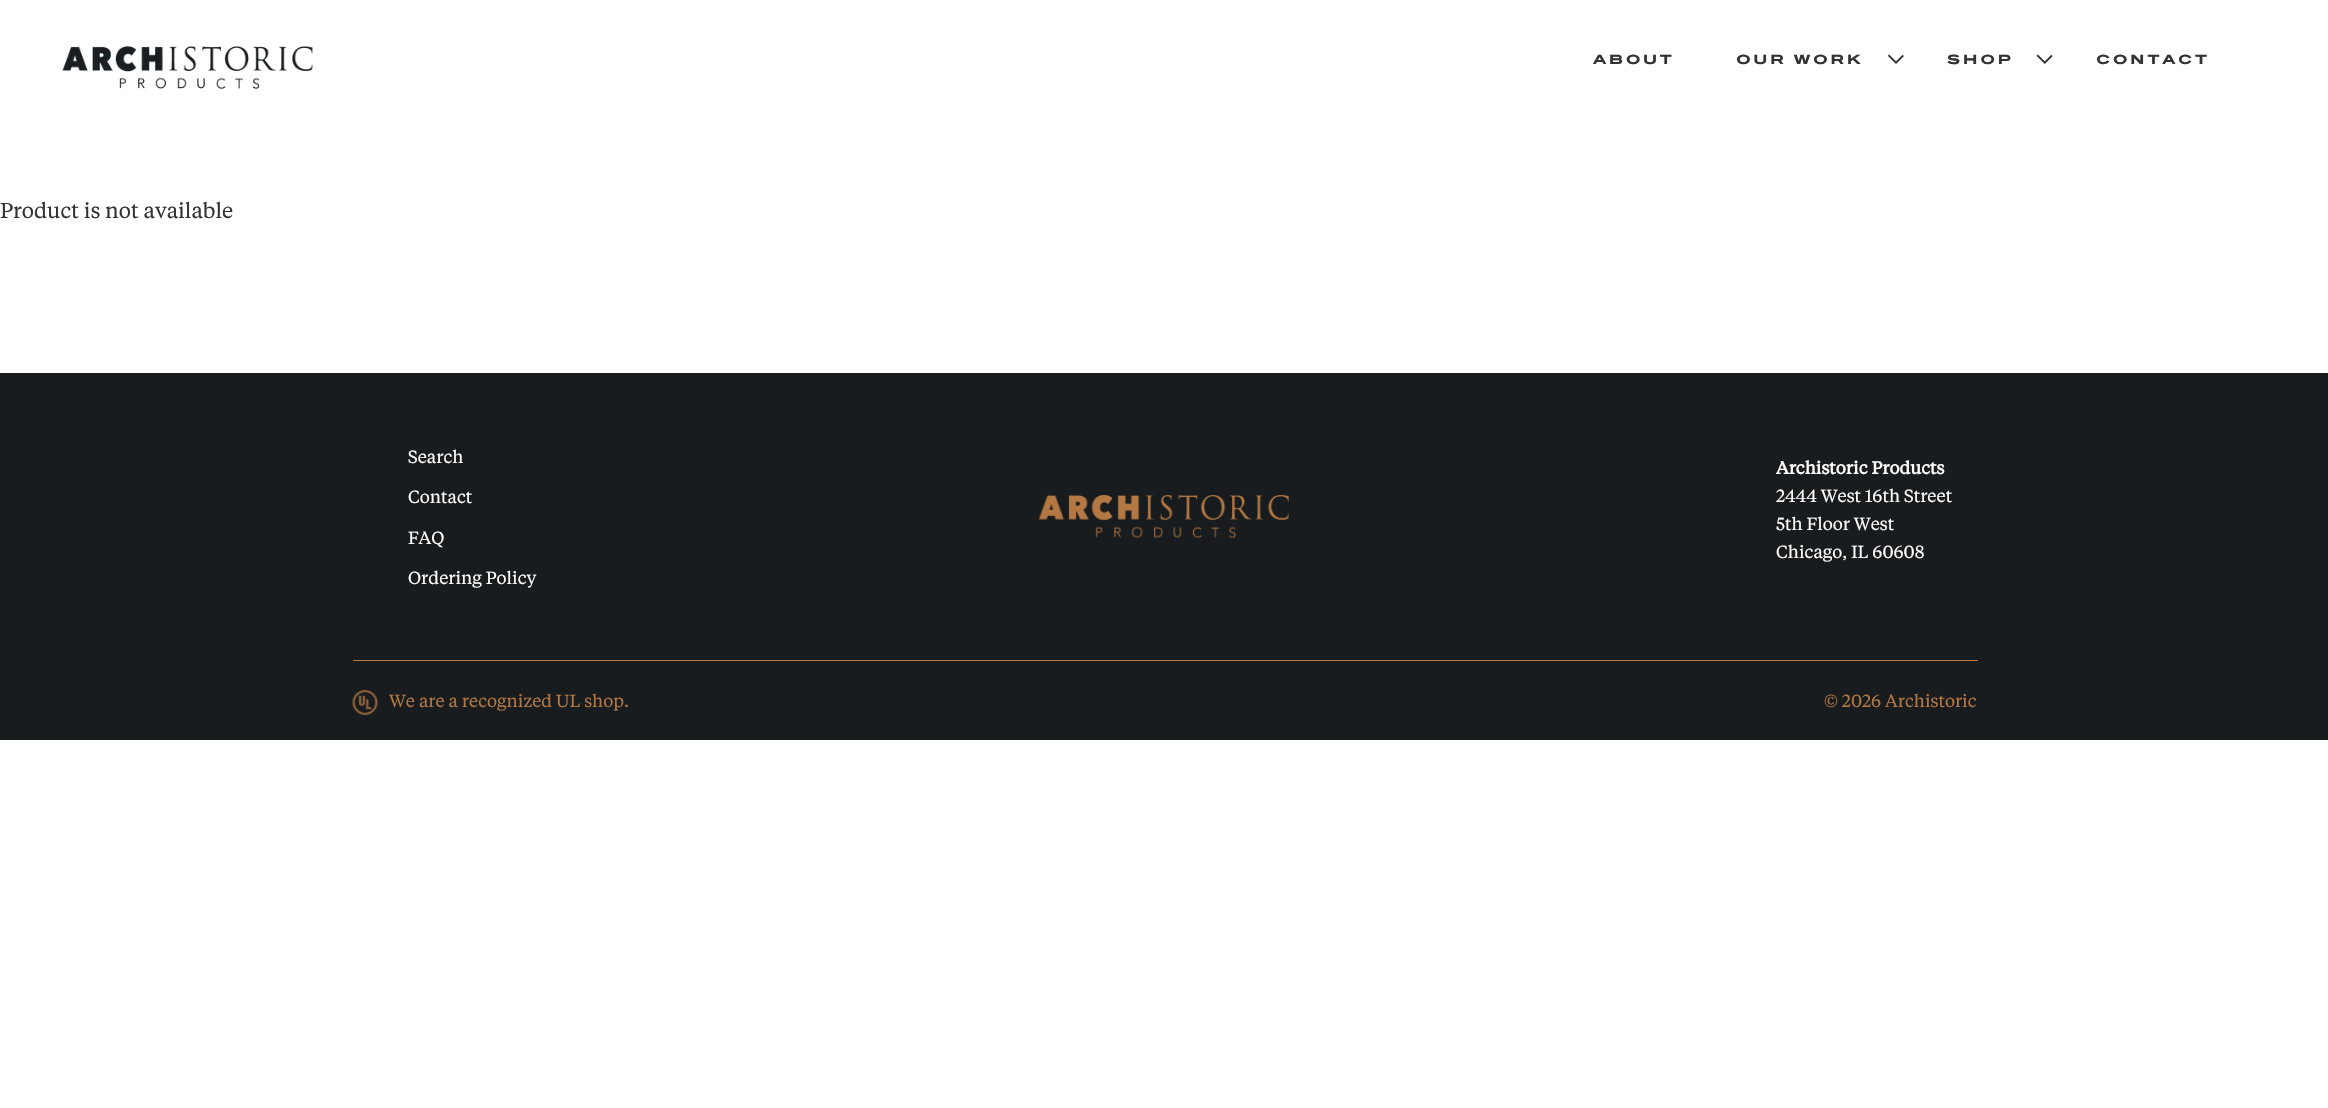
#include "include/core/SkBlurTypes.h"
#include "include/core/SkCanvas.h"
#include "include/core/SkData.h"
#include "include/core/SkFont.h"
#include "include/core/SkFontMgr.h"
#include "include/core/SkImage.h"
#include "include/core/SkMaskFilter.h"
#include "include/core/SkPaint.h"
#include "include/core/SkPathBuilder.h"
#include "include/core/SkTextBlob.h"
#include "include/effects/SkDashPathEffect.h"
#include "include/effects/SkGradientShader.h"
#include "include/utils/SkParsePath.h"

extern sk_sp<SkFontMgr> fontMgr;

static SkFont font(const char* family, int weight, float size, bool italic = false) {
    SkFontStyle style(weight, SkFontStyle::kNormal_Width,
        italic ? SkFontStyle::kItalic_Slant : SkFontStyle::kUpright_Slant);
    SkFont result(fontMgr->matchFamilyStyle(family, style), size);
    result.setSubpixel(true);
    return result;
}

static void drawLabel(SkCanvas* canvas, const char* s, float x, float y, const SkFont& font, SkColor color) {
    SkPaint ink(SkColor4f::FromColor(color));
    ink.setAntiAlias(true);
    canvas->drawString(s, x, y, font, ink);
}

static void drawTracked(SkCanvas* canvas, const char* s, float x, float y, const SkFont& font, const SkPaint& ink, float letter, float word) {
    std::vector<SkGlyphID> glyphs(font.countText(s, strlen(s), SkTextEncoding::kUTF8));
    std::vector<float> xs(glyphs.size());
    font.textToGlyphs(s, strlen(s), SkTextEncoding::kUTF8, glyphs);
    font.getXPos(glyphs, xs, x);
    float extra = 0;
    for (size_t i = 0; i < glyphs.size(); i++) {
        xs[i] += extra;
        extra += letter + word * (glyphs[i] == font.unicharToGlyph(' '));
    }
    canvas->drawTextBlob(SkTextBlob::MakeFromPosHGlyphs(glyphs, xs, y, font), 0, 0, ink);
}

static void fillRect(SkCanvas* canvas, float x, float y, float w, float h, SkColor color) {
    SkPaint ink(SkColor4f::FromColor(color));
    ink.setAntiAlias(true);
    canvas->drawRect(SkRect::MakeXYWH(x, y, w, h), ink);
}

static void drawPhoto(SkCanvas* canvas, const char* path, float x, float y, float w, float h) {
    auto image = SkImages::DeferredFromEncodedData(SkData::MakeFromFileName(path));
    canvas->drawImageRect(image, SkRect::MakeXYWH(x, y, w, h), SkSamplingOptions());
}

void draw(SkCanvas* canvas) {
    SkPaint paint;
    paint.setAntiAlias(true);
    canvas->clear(0xFFFFFFFF);
    drawPhoto(canvas, "assets/img1.png", 62, 46, 251, 43);
    SkFont font1 = font("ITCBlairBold", 400, 15);
    paint.setColor(0xFF333333);
    drawTracked(canvas, "about", 1593, 64, font1, paint, 2.5f, 0);
    drawTracked(canvas, "our work", 1736, 64, font1, paint, 2.5f, 0);
    drawPhoto(canvas, "assets/img2.png", 1887, 54, 17, 10);
    drawTracked(canvas, "shop", 1947, 64, font1, paint, 2.5f, 0);
    drawPhoto(canvas, "assets/img3.png", 2036, 54, 17, 10);
    drawTracked(canvas, "contact", 2096, 64, font1, paint, 2.5f, 0);
    SkFont font2 = font("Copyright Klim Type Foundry", 400, 21.25f);
    drawLabel(canvas, "Product is not available", 0, 218, font2, 0xFF333333);
    fillRect(canvas, 0, 373, 2328, 367, 0xFF191C1E);
    SkFont font3 = font("Copyright Klim Type Foundry", 400, 17.5f);
    drawLabel(canvas, "Search", 408, 463, font3, 0xFFFFFFFF);
    drawLabel(canvas, "Contact", 408, 503, font3, 0xFFFFFFFF);
    drawLabel(canvas, "FAQ", 408, 544, font3, 0xFFFFFFFF);
    drawLabel(canvas, "Ordering Policy", 408, 584, font3, 0xFFFFFFFF);
    drawPhoto(canvas, "assets/img4.png", 1038, 495, 251, 43);
    SkFont font4 = font("Copyright Klim Type Foundry", 700, 17.5f);
    drawLabel(canvas, "Archistoric Products", 1776, 474, font4, 0xFFFFFFFF);
    drawLabel(canvas, "2444 West 16th Street", 1776, 502, font3, 0xFFFFFFFF);
    drawLabel(canvas, "5th Floor West", 1776, 530, font3, 0xFFFFFFFF);
    drawLabel(canvas, "Chicago, IL 60608", 1776, 558, font3, 0xFFFFFFFF);
    fillRect(canvas, 353, 660, 1625, 1, 0xFFB47844);
    drawPhoto(canvas, "assets/img5.png", 352, 690, 26, 25);
    drawLabel(canvas, "We are a recognized UL shop.", 389, 707, font3, 0xFFB47844);
    drawLabel(canvas, "© 2026 Archistoric", 1824, 707, font3, 0xFFB47844);
}
